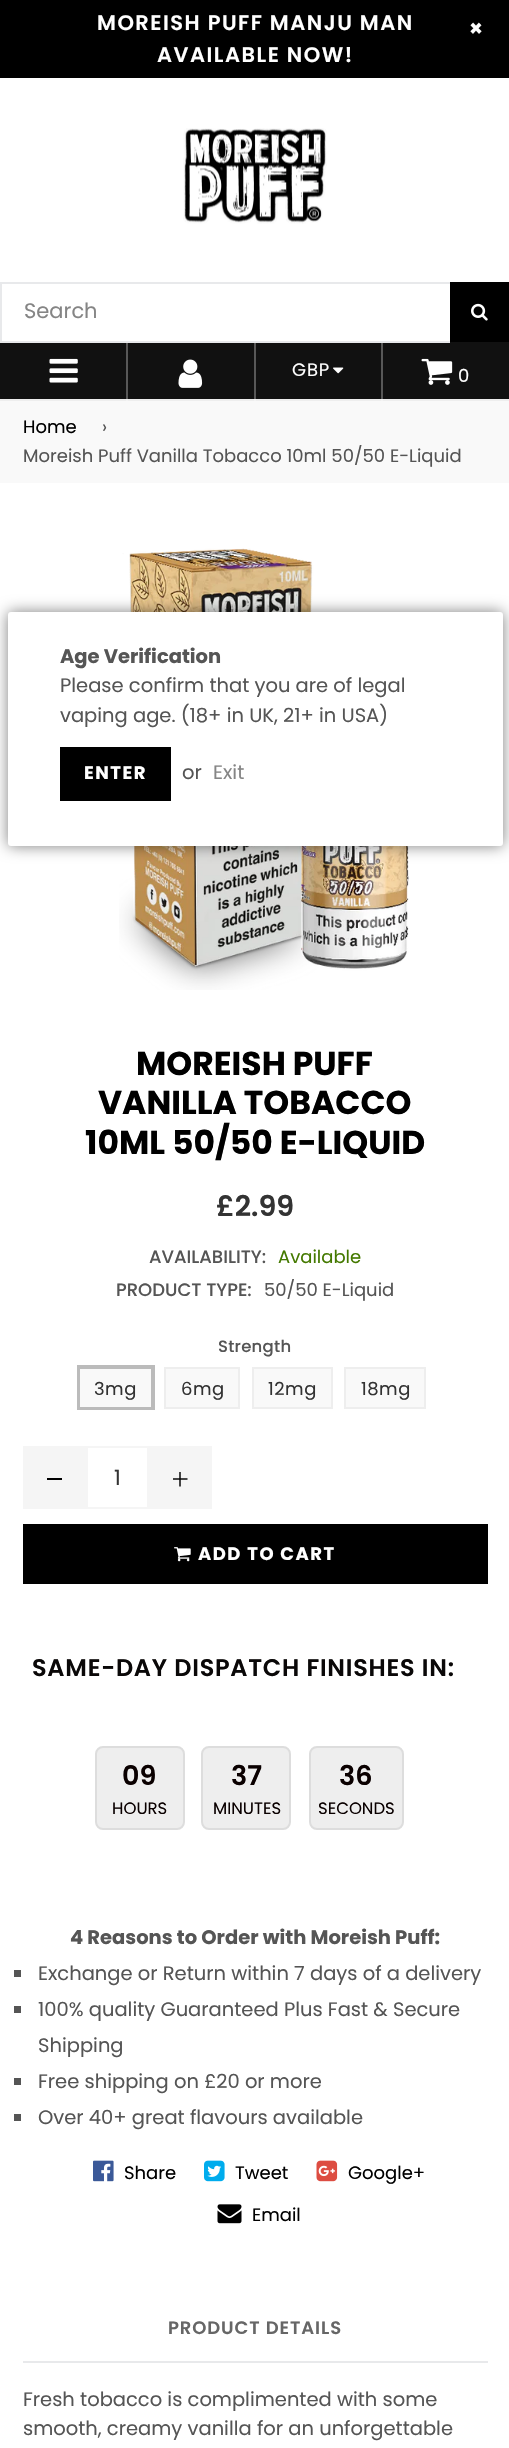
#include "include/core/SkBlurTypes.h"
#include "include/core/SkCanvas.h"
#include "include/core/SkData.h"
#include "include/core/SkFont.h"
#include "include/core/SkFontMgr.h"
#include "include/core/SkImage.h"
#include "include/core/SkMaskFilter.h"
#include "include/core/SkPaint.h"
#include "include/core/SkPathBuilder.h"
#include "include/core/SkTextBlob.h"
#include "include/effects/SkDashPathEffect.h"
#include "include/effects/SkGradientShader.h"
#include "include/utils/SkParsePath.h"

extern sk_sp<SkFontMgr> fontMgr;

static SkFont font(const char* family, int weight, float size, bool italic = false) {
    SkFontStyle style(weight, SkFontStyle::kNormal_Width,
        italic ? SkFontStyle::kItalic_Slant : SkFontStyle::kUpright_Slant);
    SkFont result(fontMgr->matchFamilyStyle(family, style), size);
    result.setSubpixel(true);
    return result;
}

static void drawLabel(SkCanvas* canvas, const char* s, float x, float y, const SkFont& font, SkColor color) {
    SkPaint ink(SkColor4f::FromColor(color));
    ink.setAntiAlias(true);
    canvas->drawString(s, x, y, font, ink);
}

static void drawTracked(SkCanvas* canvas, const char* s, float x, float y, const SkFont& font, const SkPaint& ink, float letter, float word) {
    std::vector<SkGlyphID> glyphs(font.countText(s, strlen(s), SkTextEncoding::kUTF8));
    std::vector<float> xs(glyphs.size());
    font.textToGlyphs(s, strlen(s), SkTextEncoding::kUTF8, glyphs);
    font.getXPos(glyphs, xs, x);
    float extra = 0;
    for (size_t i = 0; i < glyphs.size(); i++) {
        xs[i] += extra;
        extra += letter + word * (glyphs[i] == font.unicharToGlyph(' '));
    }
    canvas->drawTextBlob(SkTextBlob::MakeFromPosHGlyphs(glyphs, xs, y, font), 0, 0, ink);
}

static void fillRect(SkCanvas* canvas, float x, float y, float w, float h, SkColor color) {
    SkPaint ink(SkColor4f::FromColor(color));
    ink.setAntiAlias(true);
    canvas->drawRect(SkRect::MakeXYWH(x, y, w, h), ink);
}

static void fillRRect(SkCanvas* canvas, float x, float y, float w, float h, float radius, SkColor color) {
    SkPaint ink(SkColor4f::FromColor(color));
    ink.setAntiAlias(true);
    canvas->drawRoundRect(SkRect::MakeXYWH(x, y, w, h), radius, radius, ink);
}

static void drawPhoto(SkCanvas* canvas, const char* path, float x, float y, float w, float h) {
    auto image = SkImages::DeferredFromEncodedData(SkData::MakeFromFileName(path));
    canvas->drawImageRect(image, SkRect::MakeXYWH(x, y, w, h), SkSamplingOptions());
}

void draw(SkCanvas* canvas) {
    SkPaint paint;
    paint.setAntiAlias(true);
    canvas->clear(0xFFFFFFFF);
    fillRect(canvas, 0, 0, 509, 78, 0xFF000000);
    SkFont font1 = font("Poppins", 600, 21);
    paint.setColor(0xFFFFFFFF);
    drawTracked(canvas, "MOREISH PUFF MANJU MAN", 97, 30, font1, paint, 1.5f, 0);
    drawTracked(canvas, "AVAILABLE NOW!", 157, 62, font1, paint, 1.5f, 0);
    SkFont font2 = font("Poppins", 700, 22);
    drawLabel(canvas, "×", 469, 36, font2, 0xFFFFFFFF);
    drawPhoto(canvas, "assets/img1.png", 183, 128, 144, 96);
    fillRect(canvas, 0, 282, 450, 2, 0xFFE8E9EB);
    fillRect(canvas, 0, 342, 509, 57, 0xFF111111);
    fillRect(canvas, 381, 342, 2, 59, 0xFF585858);
    fillRect(canvas, 254, 342, 2, 59, 0xFF585858);
    fillRect(canvas, 126, 342, 2, 59, 0xFF585858);
    fillRect(canvas, 0, 341, 450, 2, 0xFFE8E9EB);
    fillRect(canvas, 0, 282, 2, 60, 0xFFE8E9EB);
    SkFont font3 = font("Poppins", 400, 21);
    drawLabel(canvas, "Search", 24, 318, font3, 0xFF858585);
    fillRect(canvas, 450, 282, 59, 60, 0xFF000000);
    drawPhoto(canvas, "assets/img2.png", 471, 303, 17, 18);
    fillRect(canvas, 0, 399, 509, 2, 0xFFEEEEEE);
    fillRect(canvas, 381, 399, 2, 2, 0xFFF3F3F3);
    fillRect(canvas, 254, 399, 2, 2, 0xFFF3F3F3);
    fillRect(canvas, 126, 399, 2, 2, 0xFFF3F3F3);
    drawPhoto(canvas, "assets/img3.png", 49, 358, 29, 25);
    drawPhoto(canvas, "assets/img4.png", 178, 359, 25, 29);
    SkFont font4 = font("Poppins", 400, 18);
    drawTracked(canvas, "GBP", 292, 376, font4, paint, 0.9f, 0);
    drawPhoto(canvas, "assets/img5.png", 333, 367, 11, 7);
    drawPhoto(canvas, "assets/img6.png", 421, 358, 32, 27);
    drawTracked(canvas, "0", 458, 382, font4, paint, 2, 0);
    fillRect(canvas, 0, 401, 509, 82, 0xFFF9F9F9);
    drawLabel(canvas, "Home", 23, 433, font4, 0xFF000000);
    drawLabel(canvas, "›", 102, 433, font4, 0xFF555555);
    drawLabel(canvas, "Moreish Puff Vanilla Tobacco 10ml 50/50 E-Liquid", 23, 462, font4, 0xFF555555);
    drawPhoto(canvas, "assets/img7.png", 119, 548, 290, 442);
    SkFont font5 = font("Poppins", 700, 33);
    drawLabel(canvas, "MOREISH PUFF", 136, 1075, font5, 0xFF000000);
    drawLabel(canvas, "VANILLA TOBACCO", 98, 1114, font5, 0xFF000000);
    drawLabel(canvas, "10ML 50/50 E-LIQUID", 85, 1154, font5, 0xFF000000);
    SkFont font6 = font("Poppins", 600, 28.5f);
    drawLabel(canvas, "£2.99", 216, 1216, font6, 0xFF333333);
    SkFont font7 = font("Poppins", 500, 18);
    drawLabel(canvas, "AVAILABILITY:", 149, 1263, font7, 0xFF555555);
    drawLabel(canvas, "Available", 278, 1263, font4, 0xFF447900);
    drawLabel(canvas, "PRODUCT TYPE:", 116, 1296, font7, 0xFF555555);
    drawLabel(canvas, "50/50 E-Liquid", 264, 1296, font4, 0xFF555555);
    SkFont font8 = font("Poppins", 500, 16.5f);
    paint.setColor(0xFF555555);
    drawTracked(canvas, "Strength", 218, 1352, font8, paint, 0.25f, 0);
    paint.setStroke(true);
    paint.setStrokeWidth(2);
    paint.setColor(0xFFBBBBBB);
    canvas->drawRect(SkRect::MakeXYWH(78, 1366, 76, 43), paint);
    paint.setStroke(false);
    paint.setColor(0xFFF9F9F9);
    canvas->drawRect(SkRect::MakeXYWH(79, 1368, 73, 40), paint);
    paint.setStroke(true);
    paint.setColor(0xFFBBBBBB);
    canvas->drawRect(SkRect::MakeXYWH(79, 1368, 73, 40), paint);
    paint.setStroke(false);
    paint.setColor(0xFF333333);
    drawTracked(canvas, "3mg", 94, 1395, font4, paint, 0.5f, 0);
    paint.setColor(0xFFF9F9F9);
    canvas->drawRect(SkRect::MakeXYWH(165, 1368, 74, 40), paint);
    paint.setStroke(true);
    paint.setColor(0xFFEEEEEE);
    canvas->drawRect(SkRect::MakeXYWH(165, 1368, 74, 40), paint);
    paint.setStroke(false);
    paint.setColor(0xFF333333);
    drawTracked(canvas, "6mg", 181, 1395, font4, paint, 0.5f, 0);
    paint.setColor(0xFFF9F9F9);
    canvas->drawRect(SkRect::MakeXYWH(253, 1368, 79, 40), paint);
    paint.setStroke(true);
    paint.setColor(0xFFEEEEEE);
    canvas->drawRect(SkRect::MakeXYWH(253, 1368, 79, 40), paint);
    paint.setStroke(false);
    paint.setColor(0xFF333333);
    drawTracked(canvas, "12mg", 268, 1395, font4, paint, 0.5f, 0);
    paint.setColor(0xFFF9F9F9);
    canvas->drawRect(SkRect::MakeXYWH(345, 1368, 80, 40), paint);
    paint.setStroke(true);
    paint.setColor(0xFFEEEEEE);
    canvas->drawRect(SkRect::MakeXYWH(345, 1368, 80, 40), paint);
    paint.setStroke(false);
    paint.setColor(0xFF333333);
    drawTracked(canvas, "18mg", 361, 1395, font4, paint, 0.5f, 0);
    fillRect(canvas, 23, 1446, 63, 63, 0xFFF5F5F5);
    fillRect(canvas, 47, 1478, 15, 2, 0xFF000000);
    paint.setStroke(true);
    paint.setColor(0xFFF5F5F5);
    canvas->drawRect(SkRect::MakeXYWH(87, 1447, 61, 61), paint);
    drawLabel(canvas, "1", 114, 1485, font3, 0xFF333333);
    fillRect(canvas, 149, 1446, 63, 63, 0xFFF5F5F5);
    drawPhoto(canvas, "assets/img8.png", 173, 1472, 15, 15);
    fillRect(canvas, 23, 1524, 465, 60, 0xFF000000);
    drawPhoto(canvas, "assets/img9.png", 174, 1547, 17, 15);
    SkFont font9 = font("Poppins", 700, 18);
    paint.setStroke(false);
    paint.setColor(0xFFFFFFFF);
    drawTracked(canvas, "ADD TO CART", 198, 1560, font9, paint, 1.5f, 0);
    SkFont font10 = font("Poppins", 600, 24);
    paint.setColor(0xFF0A0808);
    drawTracked(canvas, "SAME-DAY DISPATCH FINISHES IN:", 32, 1676, font10, paint, 0.75f, 0);
    paint.setColor(0xFFEEEEEE);
    canvas->drawRoundRect(SkRect::MakeXYWH(96, 1747, 88, 82), 7, 7, paint);
    paint.setStroke(true);
    paint.setColor(0xFFDDDDDD);
    canvas->drawRoundRect(SkRect::MakeXYWH(96, 1747, 88, 82), 7, 7, paint);
    SkFont font11 = font("Poppins", 600, 27);
    drawLabel(canvas, "09", 122, 1785, font11, 0xFF0A0000);
    SkFont font12 = font("Poppins", 400, 16.5f);
    drawLabel(canvas, "HOURS", 112, 1814, font12, 0xFF0A0000);
    paint.setStroke(false);
    paint.setColor(0xFFEEEEEE);
    canvas->drawRoundRect(SkRect::MakeXYWH(202, 1747, 88, 82), 7, 7, paint);
    paint.setStroke(true);
    paint.setColor(0xFFDDDDDD);
    canvas->drawRoundRect(SkRect::MakeXYWH(202, 1747, 88, 82), 7, 7, paint);
    drawLabel(canvas, "37", 231, 1785, font11, 0xFF0A0000);
    drawLabel(canvas, "MINUTES", 213, 1814, font12, 0xFF0A0000);
    paint.setStroke(false);
    paint.setColor(0xFFEEEEEE);
    canvas->drawRoundRect(SkRect::MakeXYWH(310, 1747, 93, 82), 7, 7, paint);
    paint.setStroke(true);
    paint.setColor(0xFFDDDDDD);
    canvas->drawRoundRect(SkRect::MakeXYWH(310, 1747, 93, 82), 7, 7, paint);
    drawLabel(canvas, "36", 339, 1785, font11, 0xFF0A0000);
    drawLabel(canvas, "SECONDS", 318, 1814, font12, 0xFF0A0000);
    SkFont font13 = font("Poppins", 700, 19.5f);
    drawLabel(canvas, "4 Reasons to Order with Moreish Puff:", 70, 1944, font13, 0xFF555555);
    fillRect(canvas, 14, 1970, 7, 7, 0xFF555555);
    SkFont font14 = font("Poppins", 400, 19.5f);
    drawLabel(canvas, "Exchange or Return within 7 days of a delivery", 38, 1980, font14, 0xFF555555);
    fillRect(canvas, 14, 2006, 7, 7, 0xFF555555);
    drawLabel(canvas, "100% quality Guaranteed Plus Fast & Secure", 38, 2016, font14, 0xFF555555);
    drawLabel(canvas, "Shipping", 38, 2052, font14, 0xFF555555);
    fillRect(canvas, 14, 2078, 7, 7, 0xFF555555);
    drawLabel(canvas, "Free shipping on £20 or more", 38, 2088, font14, 0xFF555555);
    fillRect(canvas, 14, 2114, 7, 7, 0xFF555555);
    drawLabel(canvas, "Over 40+ great flavours available", 38, 2124, font14, 0xFF555555);
    drawPhoto(canvas, "assets/img10.png", 93, 2160, 21, 22);
    drawLabel(canvas, "Share", 124, 2179, font4, 0xFF000000);
    drawPhoto(canvas, "assets/img11.png", 204, 2160, 21, 22);
    drawLabel(canvas, "Tweet", 235, 2179, font4, 0xFF000000);
    drawPhoto(canvas, "assets/img12.png", 316, 2160, 22, 22);
    drawLabel(canvas, "Google+", 348, 2179, font4, 0xFF000000);
    drawPhoto(canvas, "assets/img13.png", 217, 2204, 25, 20);
    drawLabel(canvas, "Email", 252, 2221, font4, 0xFF000000);
    fillRect(canvas, 23, 2361, 465, 2, 0xFFE8E9EB);
    SkFont font15 = font("Poppins", 600, 18);
    paint.setStroke(false);
    paint.setColor(0xFF666666);
    drawTracked(canvas, "PRODUCT DETAILS", 168, 2334, font15, paint, 0.9f, 0);
    drawLabel(canvas, "Fresh tobacco is complimented with some", 23, 2406, font14, 0xFF555555);
    drawLabel(canvas, "smooth, creamy vanilla for an unforgettable", 23, 2435, font14, 0xFF555555);
    paint.setColor(0x80000000);
    paint.setMaskFilter(SkMaskFilter::MakeBlur(kNormal_SkBlurStyle, 7.5f));
    canvas->drawRoundRect(SkRect::MakeXYWH(8, 612, 495, 234), 3, 3, paint);
    paint.setMaskFilter(nullptr);
    fillRRect(canvas, 8, 612, 495, 234, 3, 0xFFFFFFFF);
    drawLabel(canvas, "Age Verification", 60, 663, font13, 0xFF555555);
    drawLabel(canvas, "Please confirm that you are of legal", 60, 692, font14, 0xFF555555);
    drawLabel(canvas, "vaping age. (18+ in UK, 21+ in USA)", 60, 722, font14, 0xFF555555);
    fillRect(canvas, 60, 747, 111, 54, 0xFF000000);
    paint.setColor(0xFFFFFFFF);
    drawTracked(canvas, "ENTER", 84, 779, font9, paint, 1.5f, 0);
    drawLabel(canvas, "or", 182, 779, font14, 0xFF555555);
    drawLabel(canvas, "Exit", 213, 779, font14, 0xFF858585);
}
